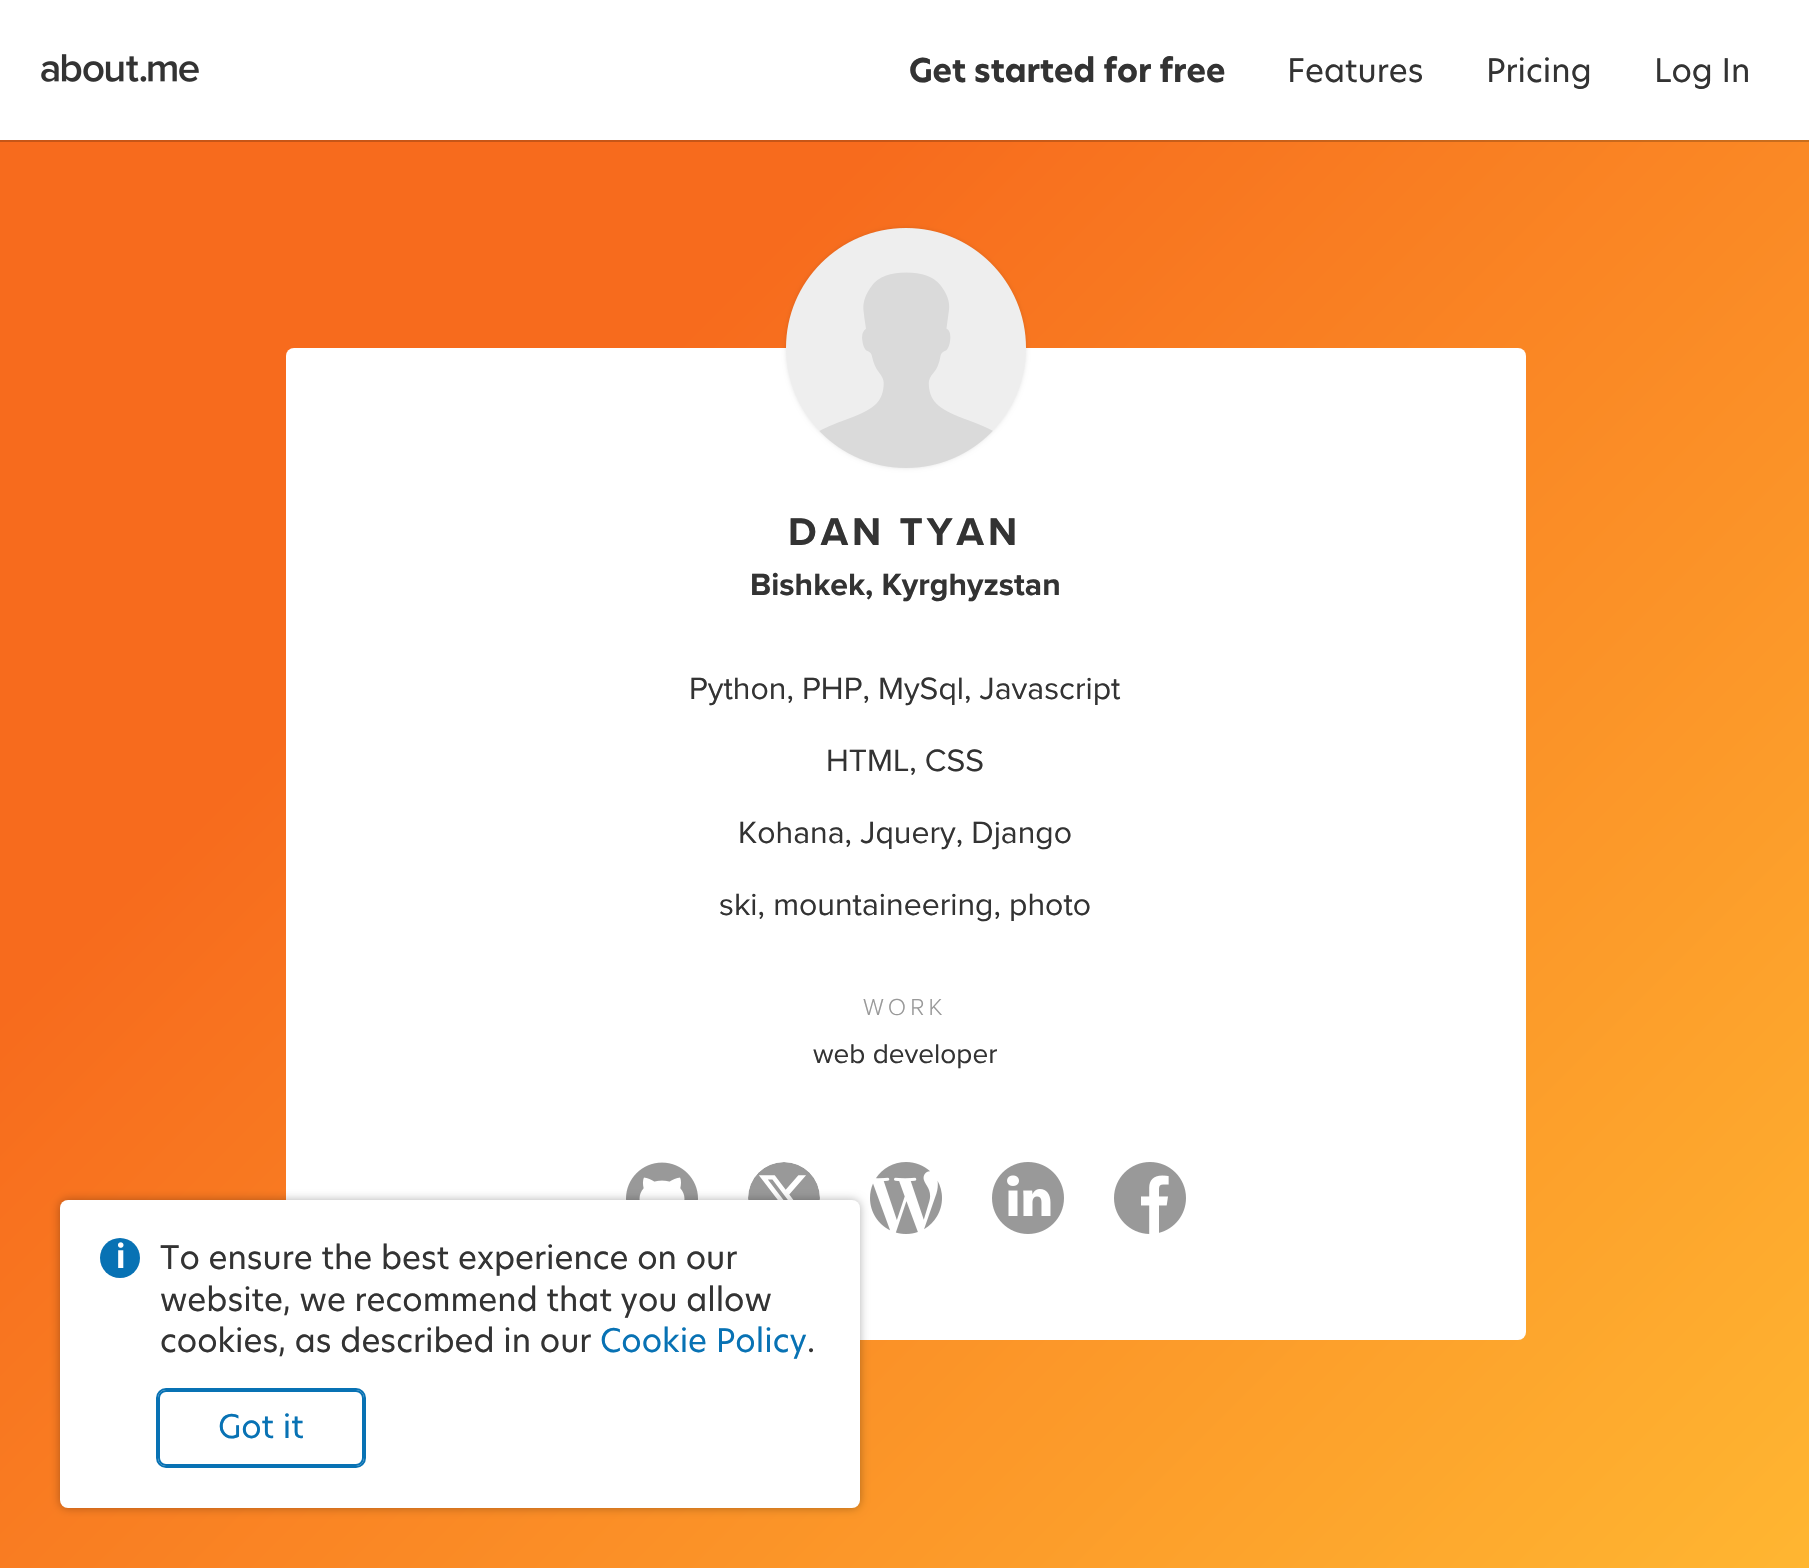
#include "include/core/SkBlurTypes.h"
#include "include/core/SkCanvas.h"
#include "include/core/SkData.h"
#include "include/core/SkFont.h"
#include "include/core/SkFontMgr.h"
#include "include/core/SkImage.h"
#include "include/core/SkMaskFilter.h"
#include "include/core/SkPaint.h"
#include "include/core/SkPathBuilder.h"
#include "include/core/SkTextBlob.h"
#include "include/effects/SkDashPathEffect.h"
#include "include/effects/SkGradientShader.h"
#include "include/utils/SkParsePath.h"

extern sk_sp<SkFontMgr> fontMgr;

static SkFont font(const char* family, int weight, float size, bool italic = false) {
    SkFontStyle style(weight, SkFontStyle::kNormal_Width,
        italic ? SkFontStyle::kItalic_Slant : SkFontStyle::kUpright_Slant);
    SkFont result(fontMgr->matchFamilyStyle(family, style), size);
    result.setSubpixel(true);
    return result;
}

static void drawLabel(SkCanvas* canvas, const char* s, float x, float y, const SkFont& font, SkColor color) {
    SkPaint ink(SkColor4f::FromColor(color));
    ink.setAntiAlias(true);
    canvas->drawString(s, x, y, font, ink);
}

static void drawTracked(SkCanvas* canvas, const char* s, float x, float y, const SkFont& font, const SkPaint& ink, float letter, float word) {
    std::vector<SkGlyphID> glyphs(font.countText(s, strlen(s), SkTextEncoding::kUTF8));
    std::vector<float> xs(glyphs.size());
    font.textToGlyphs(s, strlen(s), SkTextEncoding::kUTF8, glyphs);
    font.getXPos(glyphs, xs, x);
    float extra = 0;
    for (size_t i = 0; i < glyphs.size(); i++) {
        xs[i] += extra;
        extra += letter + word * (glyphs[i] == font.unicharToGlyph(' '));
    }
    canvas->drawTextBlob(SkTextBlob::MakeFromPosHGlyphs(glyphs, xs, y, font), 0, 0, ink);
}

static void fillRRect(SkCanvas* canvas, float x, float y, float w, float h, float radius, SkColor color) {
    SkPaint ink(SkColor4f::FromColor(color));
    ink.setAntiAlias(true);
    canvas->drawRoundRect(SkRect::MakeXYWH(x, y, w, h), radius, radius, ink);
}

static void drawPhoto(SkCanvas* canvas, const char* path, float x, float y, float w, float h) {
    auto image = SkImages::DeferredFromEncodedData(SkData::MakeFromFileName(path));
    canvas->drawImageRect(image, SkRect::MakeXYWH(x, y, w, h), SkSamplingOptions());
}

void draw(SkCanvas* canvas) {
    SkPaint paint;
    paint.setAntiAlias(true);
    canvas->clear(0xFFFFFFFF);
    {
        const SkColor colors[] = {0xFFF76B1D, 0xFFF76B1D, 0xFFFFB631};
        const float stops[] = {0, 0.3f, 1};
        const SkPoint ends[] = {{61, -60}, {1750, 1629}};
        paint.setShader(SkGradientShader::MakeLinear(ends, colors, stops, 3, SkTileMode::kClamp));
        paint.setAlpha(255);
    }
    canvas->drawRect(SkRect::MakeXYWH(0, 142, 1809, 1426), paint);
    {
        const SkColor colors[] = {0xFFC65617, 0xFFC65617, 0xFFCC9227};
        const float stops[] = {0, 0.3f, 1};
        const SkPoint ends[] = {{61, -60}, {1750, 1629}};
        paint.setShader(SkGradientShader::MakeLinear(ends, colors, stops, 3, SkTileMode::kClamp));
        paint.setAlpha(255);
    }
    canvas->drawRect(SkRect::MakeXYWH(0, 140, 1809, 2), paint);
    drawPhoto(canvas, "assets/img1.png", 41, 54, 158, 28);
    SkFont font1 = font("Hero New", 700, 32);
    drawLabel(canvas, "Get started for free", 909, 82, font1, 0xFF333333);
    SkFont font2 = font("Hero New", 400, 32);
    drawLabel(canvas, "Features", 1287, 82, font2, 0xFF333333);
    drawLabel(canvas, "Pricing", 1486, 82, font2, 0xFF333333);
    drawLabel(canvas, "Log In", 1654, 82, font2, 0xFF333333);
    fillRRect(canvas, 286, 348, 1240, 992, 8, 0xFFFFFFFF);
    paint.setShader(nullptr);
    paint.setColor(0x1A000000);
    paint.setMaskFilter(SkMaskFilter::MakeBlur(kNormal_SkBlurStyle, 2));
    canvas->drawRoundRect(SkRect::MakeXYWH(786, 228, 240, 240), 120, 120, paint);
    paint.setMaskFilter(nullptr);
    drawPhoto(canvas, "assets/img2.png", 786, 228, 240, 240);
    SkFont font3 = font("Proxima Nova", 700, 40);
    paint.setColor(0xFF333333);
    drawTracked(canvas, "DAN TYAN", 788, 545, font3, paint, 4, 0);
    SkFont font4 = font("Proxima Nova", 700, 32);
    drawLabel(canvas, "Bishkek, Kyrghyzstan", 750, 595, font4, 0xFF333333);
    SkFont font5 = font("Proxima Nova", 400, 32);
    drawLabel(canvas, "Python, PHP, MySql, Javascript", 689, 699, font5, 0xFF333333);
    drawLabel(canvas, "HTML, CSS", 826, 771, font5, 0xFF333333);
    drawLabel(canvas, "Kohana, Jquery, Django", 738, 843, font5, 0xFF333333);
    drawLabel(canvas, "ski, mountaineering, photo", 719, 915, font5, 0xFF333333);
    SkFont font6 = font("Proxima Nova", 300, 24);
    paint.setColor(0xFF999999);
    drawTracked(canvas, "WORK", 863, 1015, font6, paint, 4, 0);
    SkFont font7 = font("Proxima Nova", 400, 28);
    drawLabel(canvas, "web developer", 813, 1063, font7, 0xFF333333);
    drawPhoto(canvas, "assets/img3.png", 626, 1162, 72, 38);
    drawPhoto(canvas, "assets/img4.png", 748, 1162, 72, 38);
    drawPhoto(canvas, "assets/img5.png", 870, 1162, 72, 72);
    drawPhoto(canvas, "assets/img6.png", 992, 1162, 72, 72);
    drawPhoto(canvas, "assets/img7.png", 1114, 1162, 72, 72);
    paint.setColor(0x4D000000);
    paint.setMaskFilter(SkMaskFilter::MakeBlur(kNormal_SkBlurStyle, 5));
    canvas->drawRoundRect(SkRect::MakeXYWH(60, 1200, 800, 308), 8, 8, paint);
    paint.setMaskFilter(nullptr);
    fillRRect(canvas, 60, 1200, 800, 308, 8, 0xFFFFFFFF);
    paint.setColor(0xFF0872B4);
    canvas->drawCircle(120, 1258, 20, paint);
    drawPhoto(canvas, "assets/img8.png", 118, 1242, 6, 26);
    drawLabel(canvas, "To ensure the best experience on our", 160, 1269, font2, 0xFF333333);
    drawLabel(canvas, "website, we recommend that you allow", 160, 1311, font2, 0xFF333333);
    drawLabel(canvas, "cookies, as described in our", 160, 1352, font2, 0xFF333333);
    drawLabel(canvas, "Cookie Policy", 600, 1352, font2, 0xFF0872B4);
    drawLabel(canvas, ".", 807, 1352, font2, 0xFF333333);
    paint.setStroke(true);
    paint.setStrokeWidth(2);
    canvas->drawRoundRect(SkRect::MakeXYWH(159, 1391, 204, 74), 7, 7, paint);
    canvas->drawRoundRect(SkRect::MakeXYWH(157, 1389, 208, 78), 9, 9, paint);
    drawLabel(canvas, "Got it", 218, 1438, font2, 0xFF0872B4);
}
